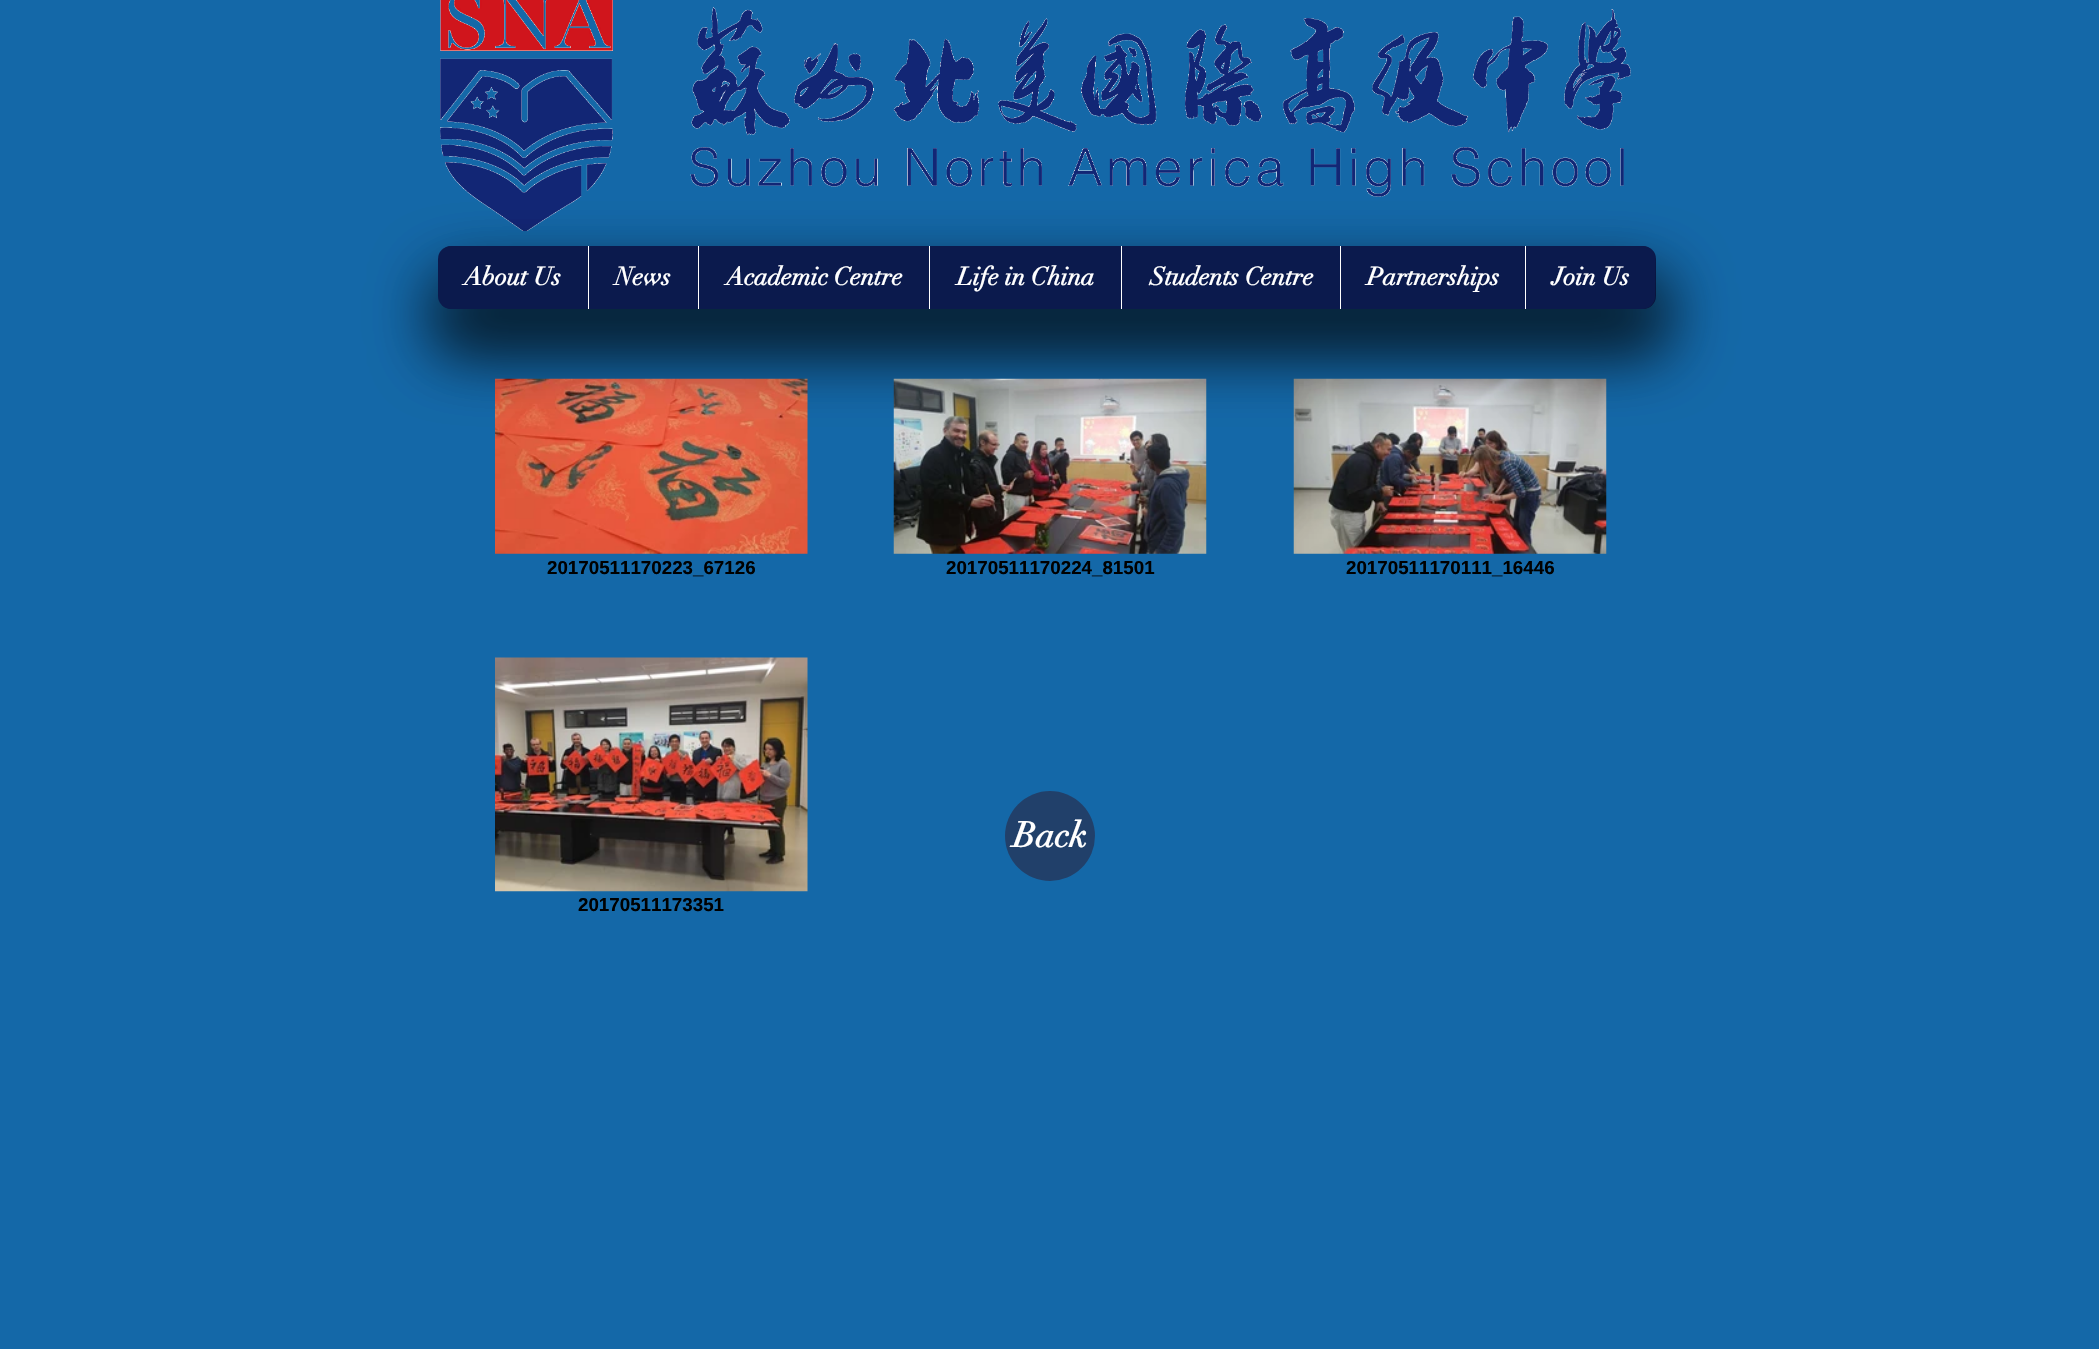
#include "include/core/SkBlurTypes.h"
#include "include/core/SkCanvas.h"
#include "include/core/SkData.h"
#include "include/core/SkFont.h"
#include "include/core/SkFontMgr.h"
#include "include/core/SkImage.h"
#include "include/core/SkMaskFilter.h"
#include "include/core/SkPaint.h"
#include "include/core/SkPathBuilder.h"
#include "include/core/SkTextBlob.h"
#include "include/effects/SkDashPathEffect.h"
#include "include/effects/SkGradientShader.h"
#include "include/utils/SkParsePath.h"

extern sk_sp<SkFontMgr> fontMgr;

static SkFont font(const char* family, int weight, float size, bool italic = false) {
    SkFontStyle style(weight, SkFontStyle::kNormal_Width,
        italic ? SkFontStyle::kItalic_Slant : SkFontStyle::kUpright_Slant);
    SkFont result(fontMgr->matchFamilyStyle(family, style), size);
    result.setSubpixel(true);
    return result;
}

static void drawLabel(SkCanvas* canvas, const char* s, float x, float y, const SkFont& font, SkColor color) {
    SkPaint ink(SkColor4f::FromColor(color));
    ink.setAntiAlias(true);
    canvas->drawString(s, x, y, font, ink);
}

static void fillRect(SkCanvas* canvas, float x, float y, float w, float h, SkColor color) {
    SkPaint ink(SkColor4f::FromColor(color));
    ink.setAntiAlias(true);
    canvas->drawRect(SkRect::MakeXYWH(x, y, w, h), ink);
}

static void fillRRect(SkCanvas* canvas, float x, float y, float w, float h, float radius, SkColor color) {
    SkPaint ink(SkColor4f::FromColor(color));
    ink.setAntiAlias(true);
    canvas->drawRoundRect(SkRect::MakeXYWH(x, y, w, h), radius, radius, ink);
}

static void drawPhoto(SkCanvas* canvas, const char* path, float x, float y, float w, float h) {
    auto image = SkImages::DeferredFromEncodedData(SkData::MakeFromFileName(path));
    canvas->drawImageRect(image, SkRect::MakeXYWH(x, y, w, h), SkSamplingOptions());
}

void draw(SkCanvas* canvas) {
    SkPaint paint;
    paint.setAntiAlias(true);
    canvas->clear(0xFF1468A8);
    drawPhoto(canvas, "assets/img1.png", 440, 0, 1191, 232);
    paint.setColor(0x7A000000);
    paint.setMaskFilter(SkMaskFilter::MakeBlur(kNormal_SkBlurStyle, 31));
    canvas->drawRoundRect(SkRect::MakeXYWH(435, 275, 1233, 78), 20, 20, paint);
    paint.setMaskFilter(nullptr);
    fillRRect(canvas, 439, 246, 1217, 63, 13, 0xFF0B1A4D);
    drawPhoto(canvas, "assets/img2.png", 495, 378, 313, 176);
    drawPhoto(canvas, "assets/img3.png", 893, 378, 314, 176);
    drawPhoto(canvas, "assets/img4.png", 1293, 378, 314, 176);
    paint.setMaskFilter(SkMaskFilter::MakeBlur(kNormal_SkBlurStyle, 31));
    canvas->drawRoundRect(SkRect::MakeXYWH(434, 275, 1232, 78), 20, 20, paint);
    paint.setMaskFilter(nullptr);
    fillRRect(canvas, 438, 246, 1217, 63, 13, 0xFF0B1A4D);
    SkFont font1 = font("didot", 700, 25);
    drawLabel(canvas, "About Us", 464, 285, font1, 0xFFFFFFFF);
    fillRect(canvas, 588, 246, 1, 63, 0xFFFFFFFF);
    drawLabel(canvas, "News", 615, 285, font1, 0xFFFFFFFF);
    fillRect(canvas, 698, 246, 1, 63, 0xFFFFFFFF);
    drawLabel(canvas, "Academic Centre", 726, 285, font1, 0xFFFFFFFF);
    fillRect(canvas, 929, 246, 1, 63, 0xFFFFFFFF);
    drawLabel(canvas, "Life in China", 957, 285, font1, 0xFFFFFFFF);
    fillRect(canvas, 1121, 246, 1, 63, 0xFFFFFFFF);
    drawLabel(canvas, "Students Centre", 1150, 285, font1, 0xFFFFFFFF);
    fillRect(canvas, 1340, 246, 1, 63, 0xFFFFFFFF);
    drawLabel(canvas, "Partnerships", 1367, 285, font1, 0xFFFFFFFF);
    fillRect(canvas, 1525, 246, 1, 63, 0xFFFFFFFF);
    drawLabel(canvas, "Join Us", 1552, 285, font1, 0xFFFFFFFF);
    SkFont font2 = font("Liberation Sans", 700, 18.75f);
    drawLabel(canvas, "20170511170223_67126", 547, 574, font2, 0xFF000000);
    drawLabel(canvas, "20170511170224_81501", 946, 574, font2, 0xFF000000);
    drawLabel(canvas, "20170511170111_16446", 1346, 574, font2, 0xFF000000);
    drawPhoto(canvas, "assets/img5.png", 495, 657, 313, 235);
    drawLabel(canvas, "20170511173351", 578, 911, font2, 0xFF000000);
    paint.setColor(0xFF21406A);
    canvas->drawCircle(1050, 836, 45, paint);
    SkFont font3 = font("didot", 700, 35);
    drawLabel(canvas, "Back", 1013, 847, font3, 0xFFFFFFFF);
}
